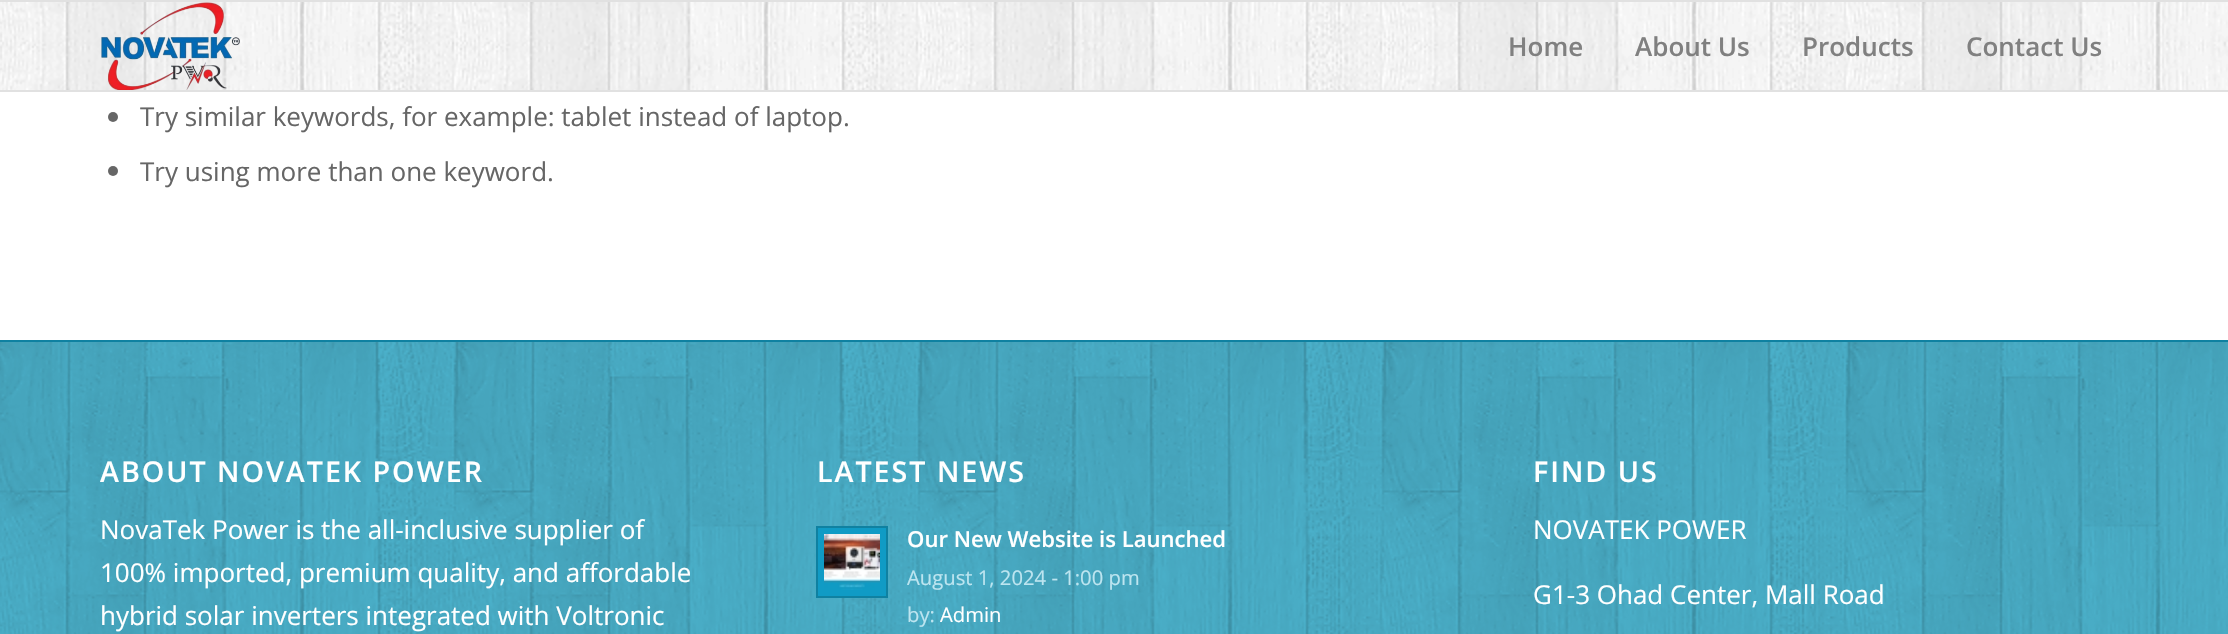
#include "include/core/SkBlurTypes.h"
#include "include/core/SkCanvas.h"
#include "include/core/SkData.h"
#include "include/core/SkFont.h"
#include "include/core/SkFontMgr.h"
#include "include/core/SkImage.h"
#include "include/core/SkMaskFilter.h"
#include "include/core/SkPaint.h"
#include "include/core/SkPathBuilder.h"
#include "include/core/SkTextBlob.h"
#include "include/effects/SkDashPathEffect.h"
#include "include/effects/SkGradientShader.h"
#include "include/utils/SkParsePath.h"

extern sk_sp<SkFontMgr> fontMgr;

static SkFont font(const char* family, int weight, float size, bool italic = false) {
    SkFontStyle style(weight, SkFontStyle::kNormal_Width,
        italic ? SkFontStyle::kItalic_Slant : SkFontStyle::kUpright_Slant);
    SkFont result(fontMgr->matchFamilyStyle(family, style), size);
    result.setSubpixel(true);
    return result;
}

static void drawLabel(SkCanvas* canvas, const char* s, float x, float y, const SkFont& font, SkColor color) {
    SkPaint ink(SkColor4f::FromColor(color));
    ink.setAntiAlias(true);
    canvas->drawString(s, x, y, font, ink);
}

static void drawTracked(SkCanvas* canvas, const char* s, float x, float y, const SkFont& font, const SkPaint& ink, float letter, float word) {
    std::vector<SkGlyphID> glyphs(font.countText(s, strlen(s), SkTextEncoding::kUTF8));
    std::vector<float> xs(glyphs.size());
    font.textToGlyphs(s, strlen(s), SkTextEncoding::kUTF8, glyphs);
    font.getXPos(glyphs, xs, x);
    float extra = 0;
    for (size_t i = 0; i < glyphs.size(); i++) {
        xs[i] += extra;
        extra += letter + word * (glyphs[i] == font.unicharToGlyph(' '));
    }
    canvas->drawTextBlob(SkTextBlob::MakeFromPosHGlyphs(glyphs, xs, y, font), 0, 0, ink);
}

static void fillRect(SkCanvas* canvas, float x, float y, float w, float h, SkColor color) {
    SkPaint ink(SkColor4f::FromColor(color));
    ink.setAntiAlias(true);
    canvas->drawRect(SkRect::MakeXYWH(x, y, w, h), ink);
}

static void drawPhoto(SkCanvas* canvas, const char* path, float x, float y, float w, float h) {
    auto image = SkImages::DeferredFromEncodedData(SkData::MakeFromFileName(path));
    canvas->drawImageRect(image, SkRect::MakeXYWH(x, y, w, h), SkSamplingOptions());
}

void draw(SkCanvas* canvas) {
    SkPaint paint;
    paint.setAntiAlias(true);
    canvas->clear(0xFFFFFFFF);
    paint.setColor(0xFFF7F7F7);
    canvas->drawCircle(113, 61, 5, paint);
    drawPhoto(canvas, "assets/img1.png", 0, 2, 2228, 88);
    fillRect(canvas, 0, 0, 2228, 2, 0xFFE1E1E1);
    fillRect(canvas, 0, 90, 2228, 2, 0xFFE1E1E1);
    drawPhoto(canvas, "assets/img2.png", 101, 2, 139, 88);
    SkFont font1 = font("Open Sans", 600, 26);
    drawLabel(canvas, "Home", 1508, 56, font1, 0xFF808080);
    drawLabel(canvas, "About Us", 1635, 56, font1, 0xFF808080);
    drawLabel(canvas, "Products", 1802, 56, font1, 0xFF808080);
    drawLabel(canvas, "Contact Us", 1966, 56, font1, 0xFF808080);
    paint.setColor(0xFF666666);
    canvas->drawCircle(113, 117, 5, paint);
    SkFont font2 = font("Open Sans", 400, 26);
    drawLabel(canvas, "Try similar keywords, for example: tablet instead of laptop.", 140, 126, font2, 0xFF666666);
    canvas->drawCircle(113, 171, 5, paint);
    drawLabel(canvas, "Try using more than one keyword.", 140, 181, font2, 0xFF666666);
    fillRect(canvas, 0, 342, 2228, 292, 0xFF4BB2CC);
    drawPhoto(canvas, "assets/img3.png", 0, 342, 2228, 292);
    fillRect(canvas, 0, 340, 2228, 2, 0xFF0F81A1);
    SkFont font3 = font("Open Sans", 600, 28.6f);
    paint.setColor(0xFFFFFFFF);
    drawTracked(canvas, "ABOUT NOVATEK POWER", 100, 482, font3, paint, 2, 0);
    drawLabel(canvas, "NovaTek Power is the all-inclusive supplier of", 100, 539, font2, 0xFFFFFFFF);
    drawLabel(canvas, "100% imported, premium quality, and affordable", 100, 582, font2, 0xFFFFFFFF);
    drawLabel(canvas, "hybrid solar inverters integrated with Voltronic", 100, 625, font2, 0xFFFFFFFF);
    drawTracked(canvas, "LATEST NEWS", 817, 482, font3, paint, 2, 0);
    paint.setColor(0xFF109BC5);
    canvas->drawRect(SkRect::MakeXYWH(817, 527, 70, 70), paint);
    paint.setStroke(true);
    paint.setStrokeWidth(2);
    paint.setColor(0xFF0F81A1);
    canvas->drawRect(SkRect::MakeXYWH(817, 527, 70, 70), paint);
    drawPhoto(canvas, "assets/img4.png", 824, 534, 56, 56);
    SkFont font4 = font("Open Sans", 600, 22.1f);
    drawLabel(canvas, "Our New Website is Launched", 907, 547, font4, 0xFFFFFFFF);
    SkFont font5 = font("Open Sans", 400, 20.25f);
    drawLabel(canvas, "August 1, 2024 - 1:00 pm", 907, 585, font5, 0xFFBDE5F0);
    drawLabel(canvas, "by:", 907, 622, font5, 0xFFBDE5F0);
    drawLabel(canvas, "Admin", 940, 622, font5, 0xFFFFFFFF);
    paint.setStroke(false);
    paint.setColor(0xFFFFFFFF);
    drawTracked(canvas, "FIND US", 1533, 482, font3, paint, 2, 0);
    drawLabel(canvas, "NOVATEK POWER", 1533, 539, font2, 0xFFFFFFFF);
    drawLabel(canvas, "G1-3 Ohad Center, Mall Road", 1533, 604, font2, 0xFFFFFFFF);
}
